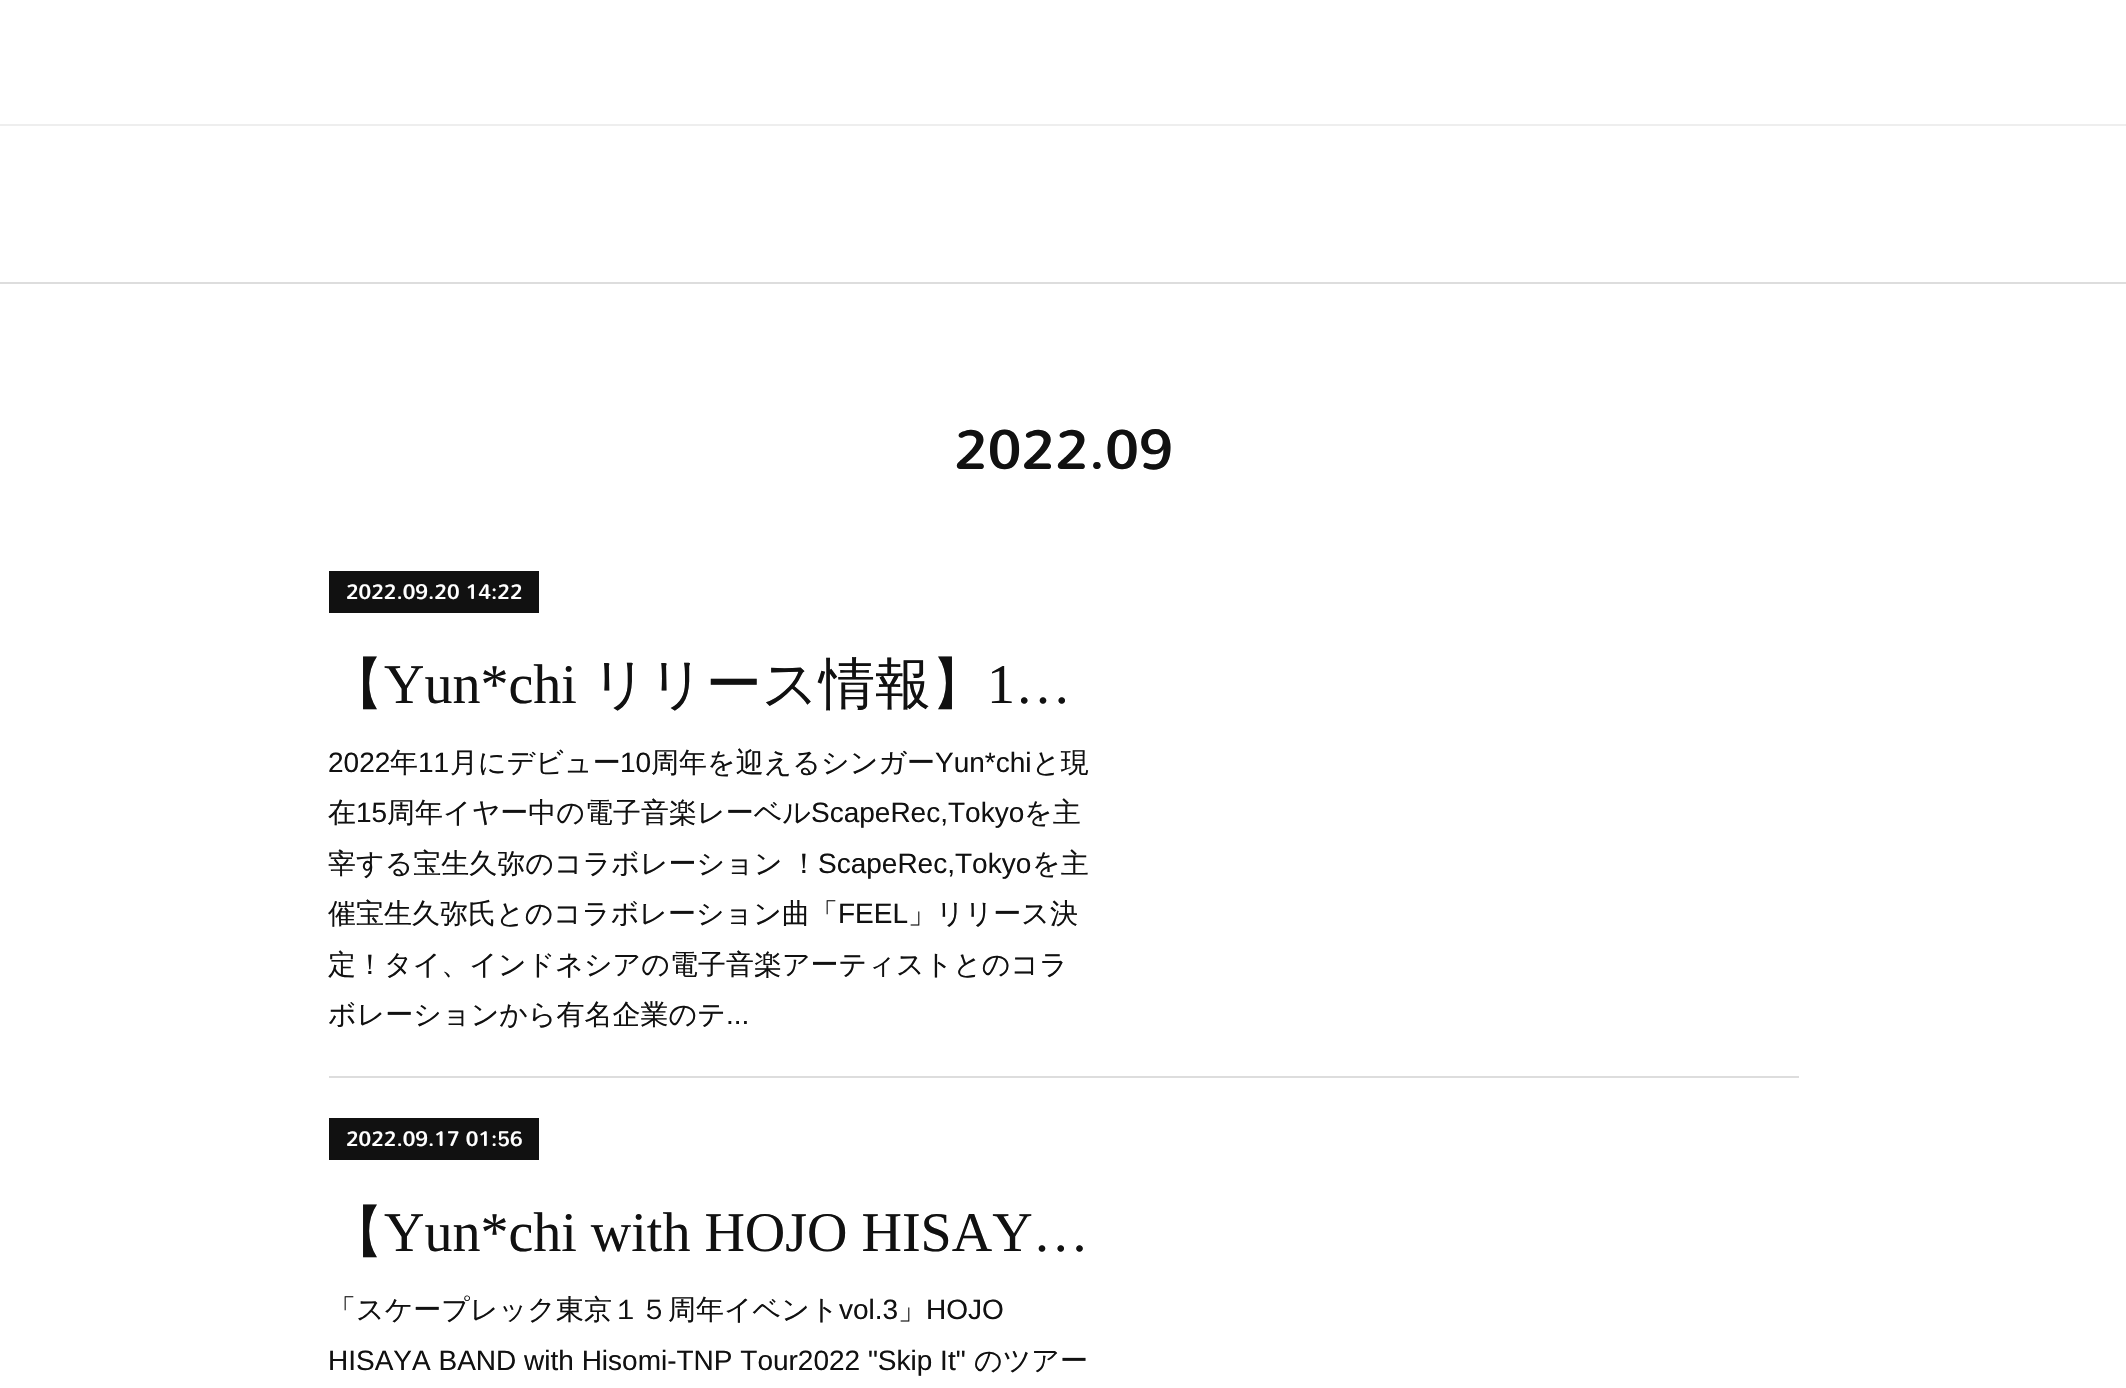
#include "include/core/SkBlurTypes.h"
#include "include/core/SkCanvas.h"
#include "include/core/SkData.h"
#include "include/core/SkFont.h"
#include "include/core/SkFontMgr.h"
#include "include/core/SkImage.h"
#include "include/core/SkMaskFilter.h"
#include "include/core/SkPaint.h"
#include "include/core/SkPathBuilder.h"
#include "include/core/SkTextBlob.h"
#include "include/effects/SkDashPathEffect.h"
#include "include/effects/SkGradientShader.h"
#include "include/utils/SkParsePath.h"

extern sk_sp<SkFontMgr> fontMgr;

static SkFont font(const char* family, int weight, float size, bool italic = false) {
    SkFontStyle style(weight, SkFontStyle::kNormal_Width,
        italic ? SkFontStyle::kItalic_Slant : SkFontStyle::kUpright_Slant);
    SkFont result(fontMgr->matchFamilyStyle(family, style), size);
    result.setSubpixel(true);
    return result;
}

static void drawLabel(SkCanvas* canvas, const char* s, float x, float y, const SkFont& font, SkColor color) {
    SkPaint ink(SkColor4f::FromColor(color));
    ink.setAntiAlias(true);
    canvas->drawString(s, x, y, font, ink);
}

static void drawTracked(SkCanvas* canvas, const char* s, float x, float y, const SkFont& font, const SkPaint& ink, float letter, float word) {
    std::vector<SkGlyphID> glyphs(font.countText(s, strlen(s), SkTextEncoding::kUTF8));
    std::vector<float> xs(glyphs.size());
    font.textToGlyphs(s, strlen(s), SkTextEncoding::kUTF8, glyphs);
    font.getXPos(glyphs, xs, x);
    float extra = 0;
    for (size_t i = 0; i < glyphs.size(); i++) {
        xs[i] += extra;
        extra += letter + word * (glyphs[i] == font.unicharToGlyph(' '));
    }
    canvas->drawTextBlob(SkTextBlob::MakeFromPosHGlyphs(glyphs, xs, y, font), 0, 0, ink);
}

static void fillRect(SkCanvas* canvas, float x, float y, float w, float h, SkColor color) {
    SkPaint ink(SkColor4f::FromColor(color));
    ink.setAntiAlias(true);
    canvas->drawRect(SkRect::MakeXYWH(x, y, w, h), ink);
}

void draw(SkCanvas* canvas) {
    SkPaint paint;
    paint.setAntiAlias(true);
    canvas->clear(0xFFFFFFFF);
    fillRect(canvas, 0, 124, 2126, 2, 0xFFEEEEEE);
    fillRect(canvas, 0, 282, 2126, 2, 0xFFDDDDDD);
    SkFont font1 = font("Nunito", 400, 56);
    drawLabel(canvas, "2022.09", 954, 469, font1, 0xFF111111);
    fillRect(canvas, 329, 571, 210, 42, 0xFF111111);
    SkFont font2 = font("Nunito", 400, 21);
    drawLabel(canvas, "2022.09.20 14:22", 346, 599, font2, 0xFFFFFFFF);
    SkFont font3 = font("WenQuanYi Zen Hei", 500, 56);
    drawLabel(canvas, "【", 328, 703, font3, 0xFF111111);
    SkFont font4 = font("Liberation Serif", 400, 56);
    drawLabel(canvas, "Yun*chi", 384, 703, font4, 0xFF111111);
    drawLabel(canvas, "リリース情報】", 591, 703, font3, 0xFF111111);
    drawLabel(canvas, "1…", 987, 703, font4, 0xFF111111);
    SkFont font5 = font("Liberation Sans", 400, 28);
    drawLabel(canvas, "2022", 328, 772, font5, 0xFF111111);
    SkFont font6 = font("WenQuanYi Zen Hei", 500, 28);
    drawLabel(canvas, "年", 390, 772, font6, 0xFF111111);
    drawLabel(canvas, "11", 418, 772, font5, 0xFF111111);
    drawLabel(canvas, "月にデビュー", 450, 772, font6, 0xFF111111);
    drawLabel(canvas, "10", 620, 772, font5, 0xFF111111);
    drawLabel(canvas, "周年を迎えるシンガー", 651, 772, font6, 0xFF111111);
    drawLabel(canvas, "Yun*chi", 935, 772, font5, 0xFF111111);
    drawLabel(canvas, "と現", 1032, 772, font6, 0xFF111111);
    drawLabel(canvas, "在", 328, 822, font6, 0xFF111111);
    drawLabel(canvas, "15", 356, 822, font5, 0xFF111111);
    drawLabel(canvas, "周年イヤー中の電子音楽レーベル", 387, 822, font6, 0xFF111111);
    drawLabel(canvas, "ScapeRec,Tokyo", 811, 822, font5, 0xFF111111);
    drawLabel(canvas, "を主", 1024, 822, font6, 0xFF111111);
    paint.setColor(0xFF111111);
    drawTracked(canvas, "宰する宝生久弥のコラボレーション ！", 328, 873, font6, paint, 0, -1);
    drawLabel(canvas, "ScapeRec,Tokyo", 818, 873, font5, 0xFF111111);
    drawLabel(canvas, "を主", 1032, 873, font6, 0xFF111111);
    drawLabel(canvas, "催宝生久弥氏とのコラボレーション曲「", 328, 923, font6, 0xFF111111);
    drawLabel(canvas, "FEEL", 838, 923, font5, 0xFF111111);
    drawLabel(canvas, "」リリース決", 908, 923, font6, 0xFF111111);
    drawLabel(canvas, "定！タイ、インドネシアの電子音楽アーティストとのコラ", 328, 974, font6, 0xFF111111);
    drawLabel(canvas, "ボレーションから有名企業のテ", 328, 1024, font6, 0xFF111111);
    drawLabel(canvas, "...", 726, 1024, font5, 0xFF111111);
    fillRect(canvas, 329, 1076, 1470, 2, 0xFFDDDDDD);
    fillRect(canvas, 329, 1118, 210, 42, 0xFF111111);
    drawLabel(canvas, "2022.09.17 01:56", 346, 1146, font2, 0xFFFFFFFF);
    drawLabel(canvas, "【", 328, 1251, font3, 0xFF111111);
    drawLabel(canvas, "Yun*chi with HOJO HISAY…", 384, 1251, font4, 0xFF111111);
    drawLabel(canvas, "「スケープレック東京１５周年イベント", 328, 1319, font6, 0xFF111111);
    drawLabel(canvas, "vol.3", 839, 1319, font5, 0xFF111111);
    drawLabel(canvas, "」", 898, 1319, font6, 0xFF111111);
    drawLabel(canvas, "HOJO", 926, 1319, font5, 0xFF111111);
    drawLabel(canvas, "HISAYA BAND with Hisomi-TNP Tour2022 \"Skip It\"", 328, 1370, font5, 0xFF111111);
    drawLabel(canvas, "のツアー", 974, 1370, font6, 0xFF111111);
}
